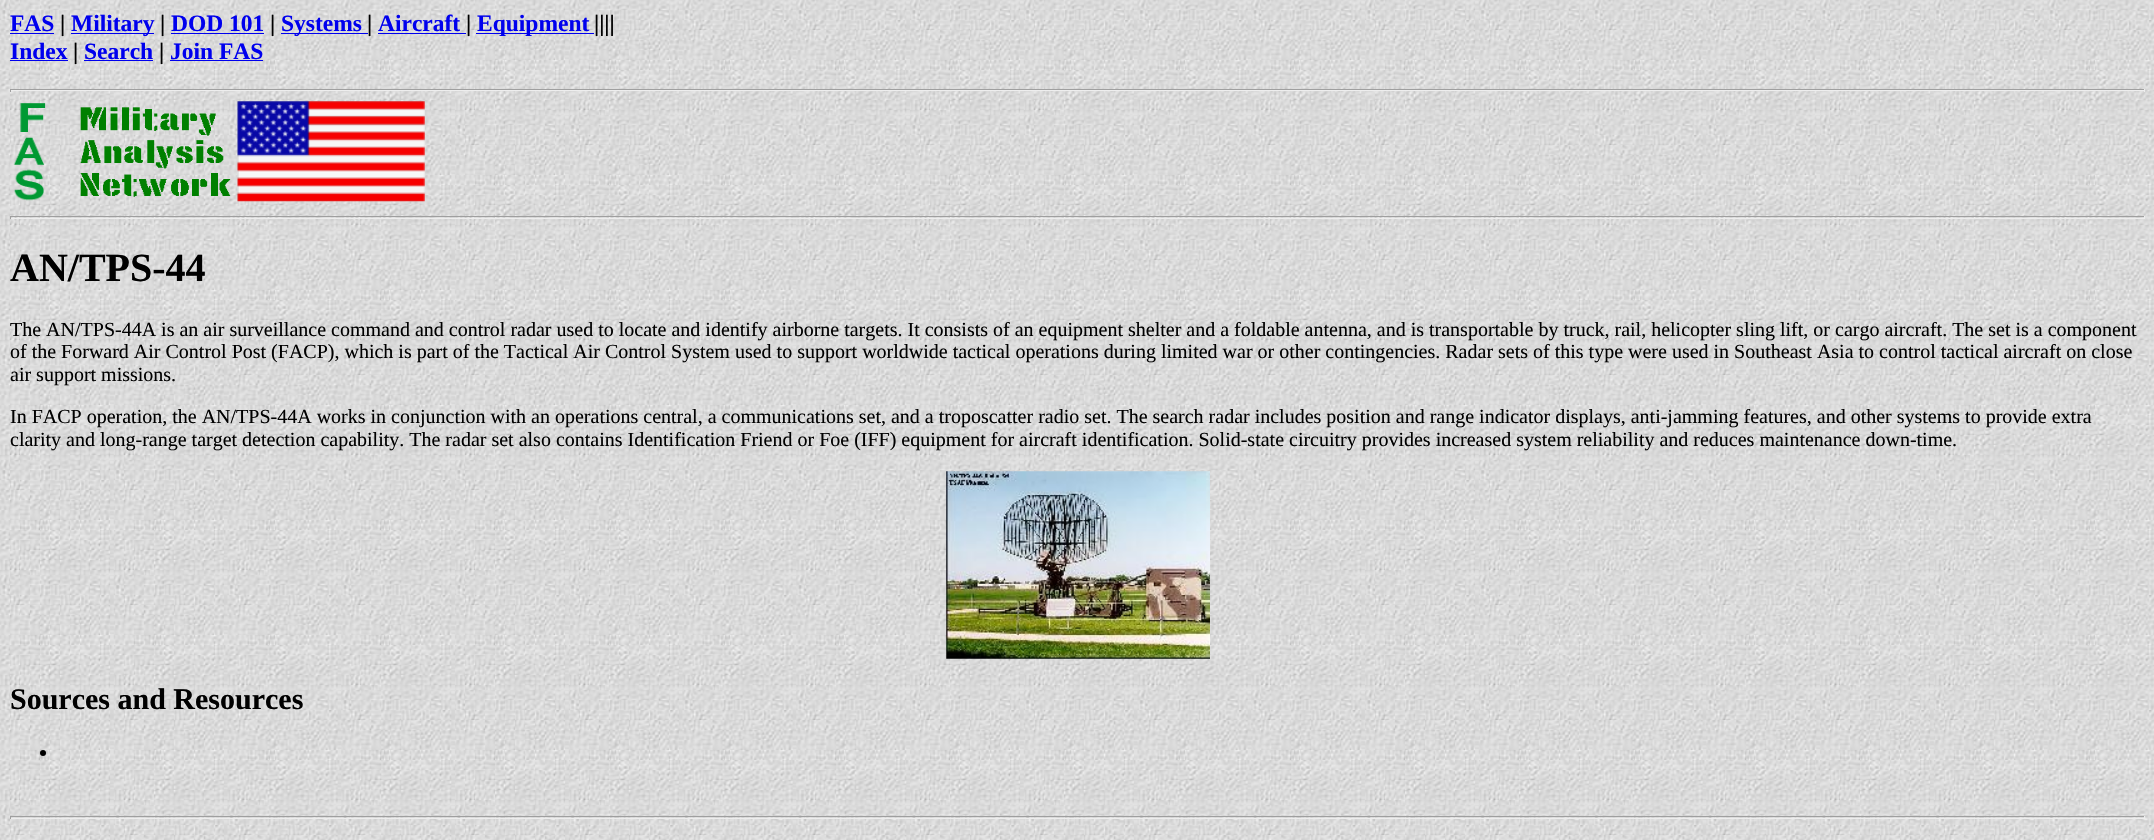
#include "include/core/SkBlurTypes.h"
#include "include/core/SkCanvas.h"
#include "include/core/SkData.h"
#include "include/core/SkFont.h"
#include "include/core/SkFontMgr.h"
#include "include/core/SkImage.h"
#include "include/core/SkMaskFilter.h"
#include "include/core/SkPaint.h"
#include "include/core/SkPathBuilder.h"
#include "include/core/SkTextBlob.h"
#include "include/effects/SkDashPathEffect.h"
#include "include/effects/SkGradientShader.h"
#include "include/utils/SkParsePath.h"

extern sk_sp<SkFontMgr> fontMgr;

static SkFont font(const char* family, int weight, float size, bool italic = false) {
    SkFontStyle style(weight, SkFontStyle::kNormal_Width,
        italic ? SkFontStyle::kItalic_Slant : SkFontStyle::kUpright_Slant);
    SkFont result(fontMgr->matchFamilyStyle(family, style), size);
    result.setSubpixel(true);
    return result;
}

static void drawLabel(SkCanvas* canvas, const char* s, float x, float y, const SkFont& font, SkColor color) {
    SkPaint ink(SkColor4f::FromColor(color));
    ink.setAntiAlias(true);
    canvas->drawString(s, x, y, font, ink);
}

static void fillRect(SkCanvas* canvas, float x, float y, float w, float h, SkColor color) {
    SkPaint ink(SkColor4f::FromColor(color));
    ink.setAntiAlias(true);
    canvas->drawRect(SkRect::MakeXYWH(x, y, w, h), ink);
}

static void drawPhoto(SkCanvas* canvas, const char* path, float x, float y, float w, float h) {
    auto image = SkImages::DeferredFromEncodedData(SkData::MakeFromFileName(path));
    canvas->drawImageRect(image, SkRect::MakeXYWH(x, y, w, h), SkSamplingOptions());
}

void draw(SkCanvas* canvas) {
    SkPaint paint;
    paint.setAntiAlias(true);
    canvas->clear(0xFFFFFFFF);
    drawPhoto(canvas, "assets/img1.png", 0, 0, 2154, 840);
    SkFont font1 = font("Liberation Serif", 700, 23.5f);
    drawLabel(canvas, "FAS", 10, 31, font1, 0xFF0000EE);
    fillRect(canvas, 10, 33, 44, 1, 0xFF0000EE);
    drawLabel(canvas, "|", 60, 31, font1, 0xFF000000);
    fillRect(canvas, 71, 33, 83, 1, 0xFF0000EE);
    drawLabel(canvas, "Military", 71, 31, font1, 0xFF0000EE);
    drawLabel(canvas, "|", 160, 31, font1, 0xFF000000);
    drawLabel(canvas, "DOD 101", 171, 31, font1, 0xFF0000EE);
    fillRect(canvas, 171, 33, 93, 1, 0xFF0000EE);
    drawLabel(canvas, "|", 270, 31, font1, 0xFF000000);
    fillRect(canvas, 281, 33, 87, 1, 0xFF0000EE);
    drawLabel(canvas, "Systems", 281, 31, font1, 0xFF0000EE);
    drawLabel(canvas, "|", 367, 31, font1, 0xFF000000);
    drawLabel(canvas, "Aircraft", 378, 31, font1, 0xFF0000EE);
    fillRect(canvas, 378, 33, 88, 1, 0xFF0000EE);
    drawLabel(canvas, "|", 466, 31, font1, 0xFF000000);
    fillRect(canvas, 476, 33, 118, 1, 0xFF0000EE);
    drawLabel(canvas, "Equipment", 477, 31, font1, 0xFF0000EE);
    drawLabel(canvas, "||||", 594, 31, font1, 0xFF000000);
    drawLabel(canvas, "Index", 10, 59, font1, 0xFF0000EE);
    fillRect(canvas, 10, 60, 58, 1, 0xFF0000EE);
    drawLabel(canvas, "|", 73, 59, font1, 0xFF000000);
    drawLabel(canvas, "Search", 84, 59, font1, 0xFF0000EE);
    fillRect(canvas, 84, 60, 69, 1, 0xFF0000EE);
    drawLabel(canvas, "|", 159, 59, font1, 0xFF000000);
    drawLabel(canvas, "Join FAS", 170, 59, font1, 0xFF0000EE);
    fillRect(canvas, 170, 60, 93, 1, 0xFF0000EE);
    fillRect(canvas, 10, 89, 2135, 1, 0xFF9F9F9F);
    fillRect(canvas, 2144, 89, 1, 3, 0xFFEEEEEE);
    fillRect(canvas, 10, 90, 2135, 1, 0xFFEEEEEE);
    fillRect(canvas, 10, 89, 1, 3, 0xFF9F9F9F);
    drawPhoto(canvas, "assets/img2.png", 13, 103, 33, 98);
    drawPhoto(canvas, "assets/img3.png", 80, 107, 151, 90);
    drawPhoto(canvas, "assets/img4.png", 237, 101, 188, 101);
    fillRect(canvas, 10, 216, 2135, 1, 0xFF9F9F9F);
    fillRect(canvas, 2144, 216, 1, 3, 0xFFEEEEEE);
    fillRect(canvas, 10, 218, 2135, 1, 0xFFEEEEEE);
    fillRect(canvas, 10, 216, 1, 3, 0xFF9F9F9F);
    SkFont font2 = font("Liberation Serif", 700, 40);
    drawLabel(canvas, "AN/TPS-44", 10, 281, font2, 0xFF000000);
    SkFont font3 = font("Liberation Serif", 400, 20);
    drawLabel(canvas, "The AN/TPS-44A is an air surveillance command and control radar used to locate and identify airborne targets. It consists of an equipment shelter and a foldable antenna, and is transportable by truck, rail, helicopter sling lift, or cargo aircraft. The set is a component", 10, 336, font3, 0xFF000000);
    drawLabel(canvas, "of the Forward Air Control Post (FACP), which is part of the Tactical Air Control System used to support worldwide tactical operations during limited war or other contingencies. Radar sets of this type were used in Southeast Asia to control tactical aircraft on close", 10, 358, font3, 0xFF000000);
    drawLabel(canvas, "air support missions.", 10, 381, font3, 0xFF000000);
    drawLabel(canvas, "In FACP operation, the AN/TPS-44A works in conjunction with an operations central, a communications set, and a troposcatter radio set. The search radar includes position and range indicator displays, anti-jamming features, and other systems to provide extra", 10, 423, font3, 0xFF000000);
    drawLabel(canvas, "clarity and long-range target detection capability. The radar set also contains Identification Friend or Foe (IFF) equipment for aircraft identification. Solid-state circuitry provides increased system reliability and reduces maintenance down-time.", 10, 446, font3, 0xFF000000);
    drawPhoto(canvas, "assets/img5.png", 946, 471, 264, 188);
    SkFont font4 = font("Liberation Serif", 700, 30);
    drawLabel(canvas, "Sources and Resources", 10, 709, font4, 0xFF000000);
    paint.setColor(0xFF000000);
    canvas->drawCircle(43, 753, 3, paint);
    fillRect(canvas, 10, 816, 2135, 1, 0xFF9F9F9F);
    fillRect(canvas, 2144, 816, 1, 3, 0xFFEEEEEE);
    fillRect(canvas, 10, 818, 2135, 1, 0xFFEEEEEE);
    fillRect(canvas, 10, 816, 1, 3, 0xFF9F9F9F);
}
